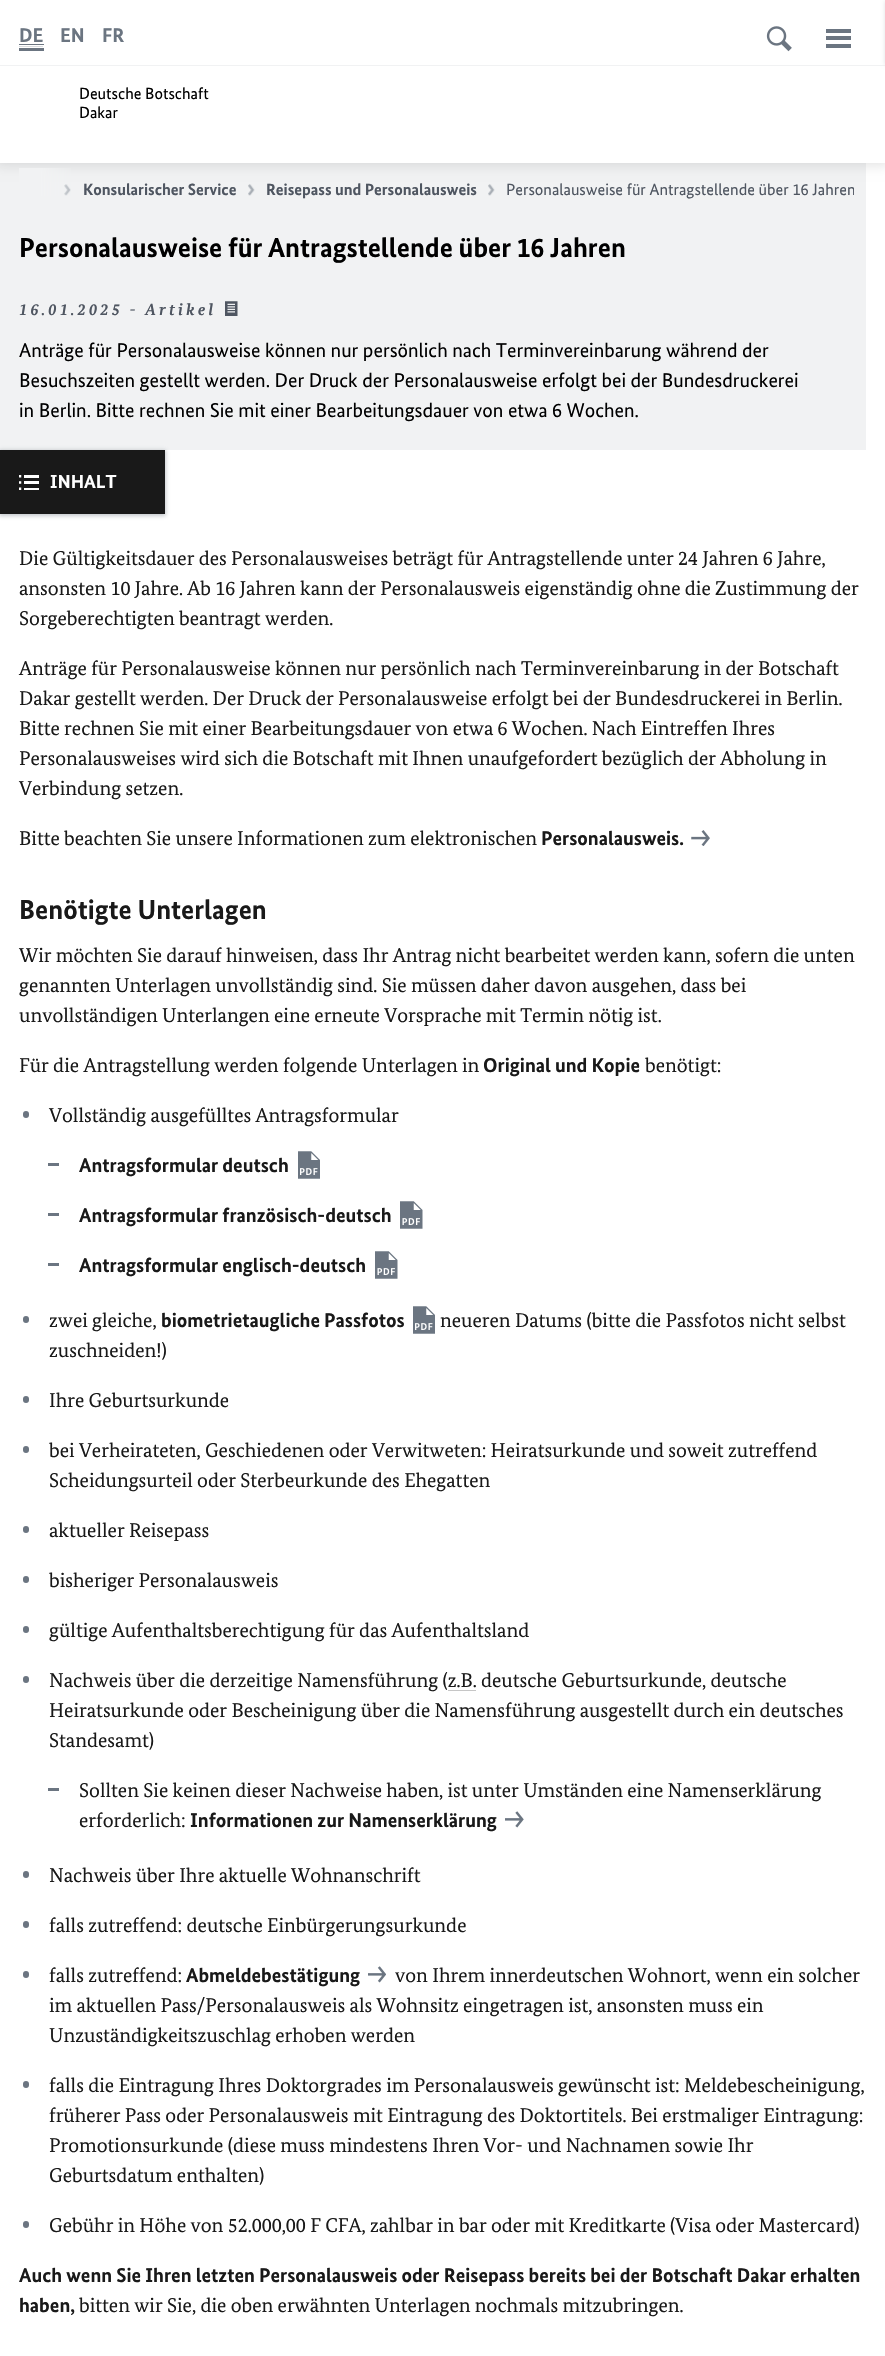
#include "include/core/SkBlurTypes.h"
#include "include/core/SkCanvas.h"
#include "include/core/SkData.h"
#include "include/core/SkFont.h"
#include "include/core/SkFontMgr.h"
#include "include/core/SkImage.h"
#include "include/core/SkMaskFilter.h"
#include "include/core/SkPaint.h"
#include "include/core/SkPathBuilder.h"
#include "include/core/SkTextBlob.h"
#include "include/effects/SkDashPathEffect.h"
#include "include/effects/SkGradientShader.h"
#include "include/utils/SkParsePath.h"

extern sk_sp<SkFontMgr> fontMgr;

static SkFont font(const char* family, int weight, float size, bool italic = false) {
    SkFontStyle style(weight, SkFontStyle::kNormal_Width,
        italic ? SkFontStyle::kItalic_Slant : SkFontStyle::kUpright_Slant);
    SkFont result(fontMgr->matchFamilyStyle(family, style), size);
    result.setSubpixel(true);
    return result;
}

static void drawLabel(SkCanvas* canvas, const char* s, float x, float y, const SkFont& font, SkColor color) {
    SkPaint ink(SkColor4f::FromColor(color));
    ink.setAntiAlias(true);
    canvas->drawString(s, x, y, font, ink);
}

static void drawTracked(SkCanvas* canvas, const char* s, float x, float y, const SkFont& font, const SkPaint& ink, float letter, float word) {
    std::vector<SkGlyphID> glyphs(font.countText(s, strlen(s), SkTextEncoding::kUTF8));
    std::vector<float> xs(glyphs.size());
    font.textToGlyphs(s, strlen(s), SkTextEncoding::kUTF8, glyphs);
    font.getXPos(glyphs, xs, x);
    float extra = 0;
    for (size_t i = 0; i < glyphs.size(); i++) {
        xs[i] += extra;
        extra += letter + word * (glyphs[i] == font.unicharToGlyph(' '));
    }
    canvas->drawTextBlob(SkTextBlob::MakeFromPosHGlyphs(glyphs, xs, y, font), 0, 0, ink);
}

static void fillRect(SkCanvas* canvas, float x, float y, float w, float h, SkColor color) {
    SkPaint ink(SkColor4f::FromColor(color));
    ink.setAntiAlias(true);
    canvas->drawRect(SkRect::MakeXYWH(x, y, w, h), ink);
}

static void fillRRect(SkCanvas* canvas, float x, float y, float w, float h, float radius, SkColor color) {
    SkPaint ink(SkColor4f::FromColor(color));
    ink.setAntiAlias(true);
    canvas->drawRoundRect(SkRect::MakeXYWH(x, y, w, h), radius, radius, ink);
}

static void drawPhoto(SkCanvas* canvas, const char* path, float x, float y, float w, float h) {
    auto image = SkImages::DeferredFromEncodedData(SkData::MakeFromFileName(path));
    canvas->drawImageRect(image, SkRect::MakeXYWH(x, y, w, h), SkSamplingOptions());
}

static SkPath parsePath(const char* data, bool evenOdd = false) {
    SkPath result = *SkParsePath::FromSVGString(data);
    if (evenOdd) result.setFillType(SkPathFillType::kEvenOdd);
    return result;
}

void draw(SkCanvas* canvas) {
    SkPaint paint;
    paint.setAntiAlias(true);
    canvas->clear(0xFFFFFFFF);
    fillRect(canvas, 0, 163, 866, 287, 0xFFF1F2F3);
    canvas->save();
    canvas->clipPath(parsePath("M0 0H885V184H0ZM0 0H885V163H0Z", true), true);
    paint.setColor(0x1A000000);
    paint.setMaskFilter(SkMaskFilter::MakeBlur(kNormal_SkBlurStyle, 5.5f));
    canvas->drawRect(SkRect::MakeXYWH(-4, -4, 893, 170), paint);
    paint.setMaskFilter(nullptr);
    canvas->restore();
    SkFont font1 = font("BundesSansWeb", 700, 20);
    drawLabel(canvas, "DE", 19, 42, font1, 0xFF6B7581);
    fillRect(canvas, 19, 44, 25, 1, 0xFF6B7581);
    fillRect(canvas, 19, 46, 24, 1, 0xFFDADDE0);
    fillRect(canvas, 19, 48, 25, 3, 0xFF6B7581);
    drawLabel(canvas, "EN", 60, 42, font1, 0xFF6B7581);
    drawLabel(canvas, "FR", 102, 42, font1, 0xFF6B7581);
    drawPhoto(canvas, "assets/img1.png", 766, 26, 26, 26);
    fillRect(canvas, 826, 36, 25, 4, 0xFF6B7581);
    fillRect(canvas, 826, 29, 25, 4, 0xFF6B7581);
    fillRect(canvas, 826, 44, 25, 4, 0xFF6B7581);
    fillRect(canvas, 0, 65, 885, 1, 0xFFF1F2F3);
    SkFont font2 = font("BundesSansWeb", 400, 16.25f);
    drawLabel(canvas, "Deutsche Botschaft", 79, 99, font2, 0xFF000000);
    drawLabel(canvas, "Dakar", 79, 118, font2, 0xFF000000);
    paint.setColor(0xFFE0E2E4);
    paint.setMaskFilter(SkMaskFilter::MakeBlur(kNormal_SkBlurStyle, 2));
    canvas->drawRect(SkRect::MakeXYWH(885, 1, 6, 64), paint);
    paint.setMaskFilter(nullptr);
    drawPhoto(canvas, "assets/img2.png", 64, 184, 7, 12);
    {
        const SkColor colors[] = {0xFFF1F2F3, 0xFFF1F2F3, 0x00F1F2F3};
        const float stops[] = {0, 0.33f, 1};
        const SkPoint ends[] = {{19, 194}, {81, 194}};
        paint.setShader(SkGradientShader::MakeLinear(ends, colors, stops, 3, SkTileMode::kClamp));
        paint.setAlpha(255);
    }
    canvas->drawRect(SkRect::MakeXYWH(19, 168, 52, 28), paint);
    SkFont font3 = font("BundesSansWeb", 700, 16.25f);
    drawLabel(canvas, "Konsularischer Service", 83, 195, font3, 0xFF4F5661);
    drawPhoto(canvas, "assets/img3.png", 248, 184, 7, 12);
    drawLabel(canvas, "Reisepass und Personalausweis", 266, 195, font3, 0xFF4F5661);
    drawPhoto(canvas, "assets/img3.png", 488, 184, 7, 12);
    canvas->save();
    canvas->clipRect(SkRect::MakeXYWH(19, 168, 835, 52));
    drawLabel(canvas, "Personalausweise für Antragstellende über 16 Jahren", 506, 195, font2, 0xFF4F5661);
    canvas->restore();
    SkFont font4 = font("BundesSansWeb", 700, 27.5f);
    drawLabel(canvas, "Personalausweise für Antragstellende über 16 Jahren", 19, 257, font4, 0xFF000000);
    SkFont font5 = font("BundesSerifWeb", 700, 16.25f, true);
    paint.setShader(nullptr);
    paint.setColor(0xFF4F5661);
    drawTracked(canvas, "16.01.2025 - Artikel", 19, 315, font5, paint, 3.25f, 0);
    drawPhoto(canvas, "assets/img4.png", 225, 301, 13, 15);
    SkFont font6 = font("BundesSansWeb", 400, 20);
    drawLabel(canvas, "Anträge für Personalausweise können nur persönlich nach Terminvereinbarung während der", 19, 357, font6, 0xFF000000);
    drawLabel(canvas, "Besuchszeiten gestellt werden. Der Druck der Personalausweise erfolgt bei der Bundesdruckerei", 19, 387, font6, 0xFF000000);
    drawLabel(canvas, "in Berlin. Bitte rechnen Sie mit einer Bearbeitungsdauer von etwa 6 Wochen.", 19, 417, font6, 0xFF000000);
    paint.setColor(0x8089919A);
    paint.setMaskFilter(SkMaskFilter::MakeBlur(kNormal_SkBlurStyle, 2));
    canvas->drawRect(SkRect::MakeXYWH(-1, 450, 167, 66), paint);
    paint.setMaskFilter(nullptr);
    fillRect(canvas, 0, 450, 165, 64, 0xFF191919);
    drawPhoto(canvas, "assets/img5.png", 19, 475, 20, 15);
    SkFont font7 = font("BundesSansWeb", 700, 19);
    drawLabel(canvas, "INHALT", 50, 488, font7, 0xFFFFFFFF);
    SkFont font8 = font("BundesSerifWeb", 400, 20);
    drawLabel(canvas, "Die Gültigkeitsdauer des Personalausweises beträgt für Antragstellende unter 24 Jahren 6 Jahre,", 19, 565, font8, 0xFF191919);
    drawLabel(canvas, "ansonsten 10 Jahre. Ab 16 Jahren kann der Personalausweis eigenständig ohne die Zustimmung der", 19, 595, font8, 0xFF191919);
    drawLabel(canvas, "Sorgeberechtigten beantragt werden.", 19, 625, font8, 0xFF191919);
    drawLabel(canvas, "Anträge für Personalausweise können nur persönlich nach Terminvereinbarung in der Botschaft", 19, 675, font8, 0xFF191919);
    drawLabel(canvas, "Dakar gestellt werden. Der Druck der Personalausweise erfolgt bei der Bundesdruckerei in Berlin.", 19, 705, font8, 0xFF191919);
    drawLabel(canvas, "Bitte rechnen Sie mit einer Bearbeitungsdauer von etwa 6 Wochen. Nach Eintreffen Ihres", 19, 735, font8, 0xFF191919);
    drawLabel(canvas, "Personalausweises wird sich die Botschaft mit Ihnen unaufgefordert bezüglich der Abholung in", 19, 765, font8, 0xFF191919);
    drawLabel(canvas, "Verbindung setzen.", 19, 795, font8, 0xFF191919);
    drawLabel(canvas, "Bitte beachten Sie unsere Informationen zum elektronischen", 19, 845, font8, 0xFF191919);
    drawLabel(canvas, "Personalausweis.", 541, 845, font1, 0xFF191919);
    drawPhoto(canvas, "assets/img6.png", 691, 830, 19, 16);
    drawLabel(canvas, "Benötigte Unterlagen", 19, 919, font4, 0xFF191919);
    drawLabel(canvas, "Wir möchten Sie darauf hinweisen, dass Ihr Antrag nicht bearbeitet werden kann, sofern die unten", 19, 962, font8, 0xFF191919);
    drawLabel(canvas, "genannten Unterlagen unvollständig sind. Sie müssen daher davon ausgehen, dass bei", 19, 992, font8, 0xFF191919);
    drawLabel(canvas, "unvollständigen Unterlangen eine erneute Vorsprache mit Termin nötig ist.", 19, 1022, font8, 0xFF191919);
    drawLabel(canvas, "Für die Antragstellung werden folgende Unterlagen in", 19, 1072, font8, 0xFF191919);
    drawLabel(canvas, "Original und Kopie", 483, 1072, font1, 0xFF191919);
    drawLabel(canvas, "benötigt:", 645, 1072, font8, 0xFF191919);
    fillRRect(canvas, 23, 1111, 6, 7, 3, 0xFF6B7581);
    drawLabel(canvas, "Vollständig ausgefülltes Antragsformular", 49, 1122, font8, 0xFF191919);
    fillRect(canvas, 48, 1163, 11, 3, 0xFF6B7581);
    drawPhoto(canvas, "assets/img7.png", 298, 1151, 22, 28);
    drawLabel(canvas, "Antragsformular deutsch", 79, 1172, font1, 0xFF191919);
    fillRect(canvas, 48, 1213, 11, 3, 0xFF6B7581);
    drawPhoto(canvas, "assets/img8.png", 400, 1201, 23, 28);
    drawLabel(canvas, "Antragsformular französisch-deutsch", 79, 1222, font1, 0xFF191919);
    fillRect(canvas, 48, 1263, 11, 3, 0xFF6B7581);
    drawPhoto(canvas, "assets/img8.png", 375, 1251, 23, 28);
    drawLabel(canvas, "Antragsformular englisch-deutsch", 79, 1272, font1, 0xFF191919);
    fillRRect(canvas, 23, 1316, 6, 7, 3, 0xFF6B7581);
    drawLabel(canvas, "zwei gleiche,", 49, 1327, font8, 0xFF191919);
    drawPhoto(canvas, "assets/img7.png", 413, 1306, 22, 28);
    drawLabel(canvas, "biometrietaugliche Passfotos", 161, 1327, font1, 0xFF191919);
    drawLabel(canvas, "neueren Datums (bitte die Passfotos nicht selbst", 440, 1327, font8, 0xFF191919);
    drawLabel(canvas, "zuschneiden!)", 49, 1357, font8, 0xFF191919);
    fillRRect(canvas, 23, 1396, 6, 7, 3, 0xFF6B7581);
    drawLabel(canvas, "Ihre Geburtsurkunde", 49, 1407, font8, 0xFF191919);
    fillRRect(canvas, 23, 1446, 6, 7, 3, 0xFF6B7581);
    drawLabel(canvas, "bei Verheirateten, Geschiedenen oder Verwitweten: Heiratsurkunde und soweit zutreffend", 49, 1457, font8, 0xFF191919);
    drawLabel(canvas, "Scheidungsurteil oder Sterbeurkunde des Ehegatten", 49, 1487, font8, 0xFF191919);
    fillRRect(canvas, 23, 1526, 6, 7, 3, 0xFF6B7581);
    drawLabel(canvas, "aktueller Reisepass", 49, 1537, font8, 0xFF191919);
    fillRRect(canvas, 23, 1576, 6, 7, 3, 0xFF6B7581);
    drawLabel(canvas, "bisheriger Personalausweis", 49, 1587, font8, 0xFF191919);
    fillRRect(canvas, 23, 1626, 6, 7, 3, 0xFF6B7581);
    drawLabel(canvas, "gültige Aufenthaltsberechtigung für das Aufenthaltsland", 49, 1637, font8, 0xFF191919);
    fillRRect(canvas, 23, 1676, 6, 7, 3, 0xFF6B7581);
    drawLabel(canvas, "Nachweis über die derzeitige Namensführung (z.B.", 49, 1687, font8, 0xFF191919);
    drawLabel(canvas, "deutsche Geburtsurkunde, deutsche", 481, 1687, font8, 0xFF191919);
    fillRect(canvas, 448, 1690, 28, 1, 0xFFC6C6C6);
    drawLabel(canvas, "Heiratsurkunde oder Bescheinigung über die Namensführung ausgestellt durch ein deutsches", 49, 1717, font8, 0xFF191919);
    drawLabel(canvas, "Standesamt)", 49, 1747, font8, 0xFF191919);
    fillRect(canvas, 48, 1788, 11, 3, 0xFF6B7581);
    drawLabel(canvas, "Sollten Sie keinen dieser Nachweise haben, ist unter Umständen eine Namenserklärung", 79, 1797, font8, 0xFF191919);
    drawLabel(canvas, "erforderlich:", 79, 1827, font8, 0xFF191919);
    drawLabel(canvas, "Informationen zur Namenserklärung", 190, 1827, font1, 0xFF191919);
    drawPhoto(canvas, "assets/img9.png", 505, 1811, 19, 17);
    fillRRect(canvas, 23, 1871, 6, 7, 3, 0xFF6B7581);
    drawLabel(canvas, "Nachweis über Ihre aktuelle Wohnanschrift", 49, 1882, font8, 0xFF191919);
    fillRRect(canvas, 23, 1921, 6, 7, 3, 0xFF6B7581);
    drawLabel(canvas, "falls zutreffend: deutsche Einbürgerungsurkunde", 49, 1932, font8, 0xFF191919);
    fillRRect(canvas, 23, 1971, 6, 7, 3, 0xFF6B7581);
    drawLabel(canvas, "falls zutreffend:", 49, 1982, font8, 0xFF191919);
    drawLabel(canvas, "Abmeldebestätigung", 186, 1982, font1, 0xFF191919);
    drawPhoto(canvas, "assets/img10.png", 368, 1966, 18, 17);
    drawLabel(canvas, "von Ihrem innerdeutschen Wohnort, wenn ein solcher", 395, 1982, font8, 0xFF191919);
    drawLabel(canvas, "im aktuellen Pass/Personalausweis als Wohnsitz eingetragen ist, ansonsten muss ein", 49, 2012, font8, 0xFF191919);
    drawLabel(canvas, "Unzuständigkeitszuschlag erhoben werden", 49, 2042, font8, 0xFF191919);
    fillRRect(canvas, 23, 2081, 6, 7, 3, 0xFF6B7581);
    drawLabel(canvas, "falls die Eintragung Ihres Doktorgrades im Personalausweis gewünscht ist: Meldebescheinigung,", 49, 2092, font8, 0xFF191919);
    drawLabel(canvas, "früherer Pass oder Personalausweis mit Eintragung des Doktortitels. Bei erstmaliger Eintragung:", 49, 2122, font8, 0xFF191919);
    drawLabel(canvas, "Promotionsurkunde (diese muss mindestens Ihren Vor- und Nachnamen sowie Ihr", 49, 2152, font8, 0xFF191919);
    drawLabel(canvas, "Geburtsdatum enthalten)", 49, 2182, font8, 0xFF191919);
    fillRRect(canvas, 23, 2221, 6, 7, 3, 0xFF6B7581);
    drawLabel(canvas, "Gebühr in Höhe von 52.000,00 F CFA, zahlbar in bar oder mit Kreditkarte (Visa oder Mastercard)", 49, 2232, font8, 0xFF191919);
    drawLabel(canvas, "Auch wenn Sie Ihren letzten Personalausweis oder Reisepass bereits bei der Botschaft Dakar erhalten", 19, 2282, font1, 0xFF191919);
    drawLabel(canvas, "haben,", 19, 2312, font1, 0xFF191919);
    drawLabel(canvas, "bitten wir Sie, die oben erwähnten Unterlagen nochmals mitzubringen.", 79, 2312, font8, 0xFF191919);
}
